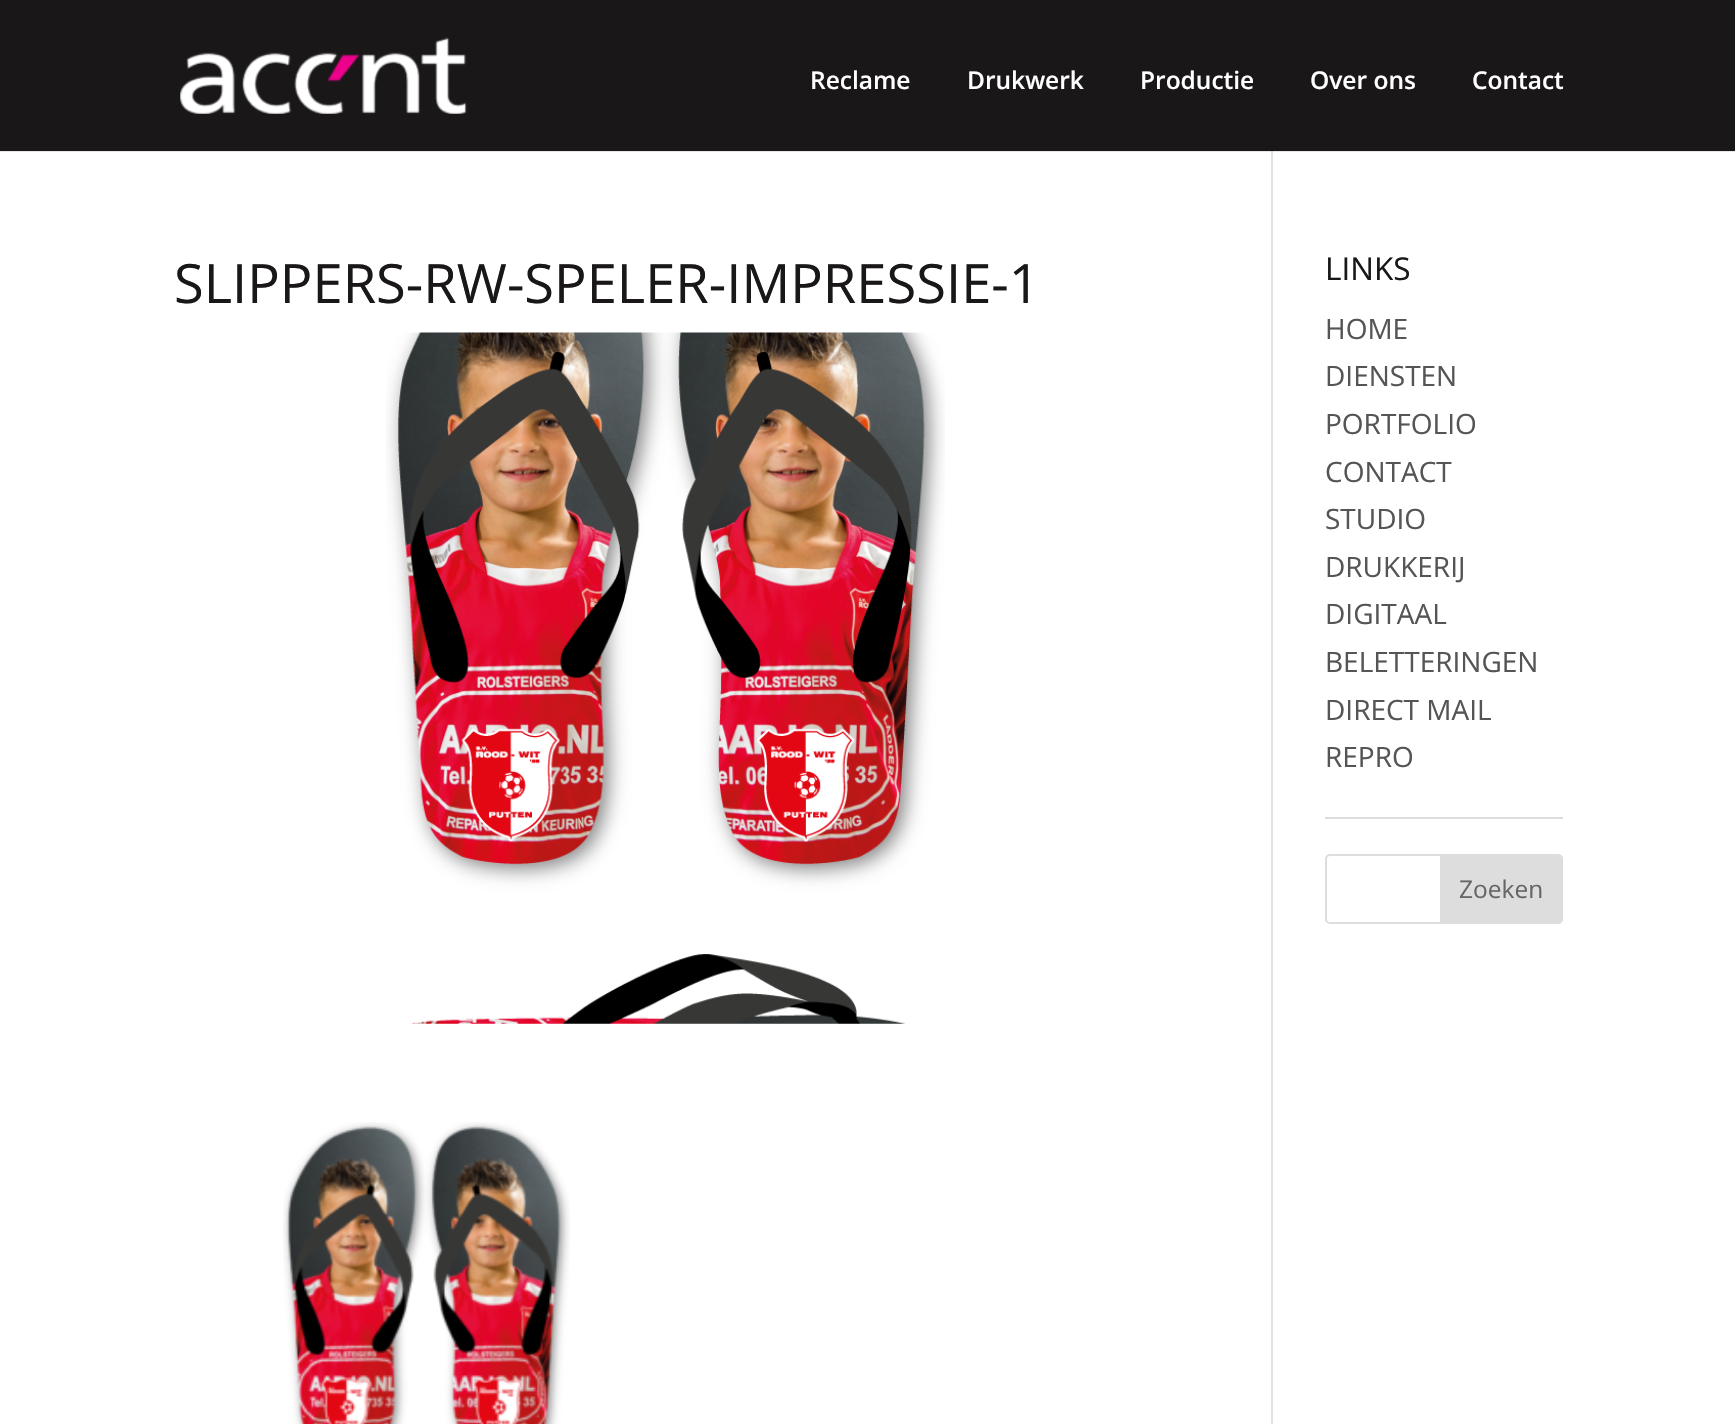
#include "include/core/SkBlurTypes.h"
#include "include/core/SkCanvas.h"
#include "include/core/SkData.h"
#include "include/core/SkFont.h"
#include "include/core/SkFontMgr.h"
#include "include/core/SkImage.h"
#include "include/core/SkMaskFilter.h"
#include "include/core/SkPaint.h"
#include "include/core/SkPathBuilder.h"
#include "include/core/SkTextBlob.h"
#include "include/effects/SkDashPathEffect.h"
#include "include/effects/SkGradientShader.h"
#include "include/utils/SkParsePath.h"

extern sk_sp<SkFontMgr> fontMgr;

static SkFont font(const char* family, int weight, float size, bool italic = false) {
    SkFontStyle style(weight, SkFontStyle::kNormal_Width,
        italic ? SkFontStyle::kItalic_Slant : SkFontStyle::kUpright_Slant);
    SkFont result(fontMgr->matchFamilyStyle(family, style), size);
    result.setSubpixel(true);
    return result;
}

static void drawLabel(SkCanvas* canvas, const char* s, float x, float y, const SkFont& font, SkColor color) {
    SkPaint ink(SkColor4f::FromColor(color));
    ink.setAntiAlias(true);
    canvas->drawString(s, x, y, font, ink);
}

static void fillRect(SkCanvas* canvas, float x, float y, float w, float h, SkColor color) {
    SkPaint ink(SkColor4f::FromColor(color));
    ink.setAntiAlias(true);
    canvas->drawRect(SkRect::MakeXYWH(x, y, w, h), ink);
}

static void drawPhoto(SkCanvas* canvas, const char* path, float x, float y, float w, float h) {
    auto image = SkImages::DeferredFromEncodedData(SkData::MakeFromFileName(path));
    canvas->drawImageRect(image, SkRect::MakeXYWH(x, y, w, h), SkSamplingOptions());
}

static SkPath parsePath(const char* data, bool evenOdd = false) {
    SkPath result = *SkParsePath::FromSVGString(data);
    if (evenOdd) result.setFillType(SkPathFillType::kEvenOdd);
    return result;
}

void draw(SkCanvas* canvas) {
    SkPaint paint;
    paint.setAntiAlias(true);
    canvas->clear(0xFFFFFFFF);
    fillRect(canvas, 0, 151, 1735, 1, 0xFFE6E6E6);
    fillRect(canvas, 1271, 149, 2, 1275, 0xFFE2E2E2);
    fillRect(canvas, 0, 0, 1735, 151, 0xFF1A1718);
    drawPhoto(canvas, "assets/img1.png", 180, 37, 287, 77);
    SkFont font1 = font("Open Sans", 600, 24.5f);
    drawLabel(canvas, "Reclame", 810, 89, font1, 0xFFFFFFFF);
    drawLabel(canvas, "Drukwerk", 967, 89, font1, 0xFFFFFFFF);
    drawLabel(canvas, "Productie", 1140, 89, font1, 0xFFFFFFFF);
    drawLabel(canvas, "Over ons", 1310, 89, font1, 0xFFFFFFFF);
    drawLabel(canvas, "Contact", 1472, 89, font1, 0xFFFFFFFF);
    fillRect(canvas, 1271, 151, 2, 1, 0xFFCBCBCB);
    SkFont font2 = font("Open Sans", 400, 54.25f);
    drawLabel(canvas, "SLIPPERS-RW-SPELER-IMPRESSIE-1", 174, 303, font2, 0xFF1A1718);
    drawPhoto(canvas, "assets/img2.png", 386, 332, 559, 692);
    drawPhoto(canvas, "assets/img3.png", 283, 1122, 287, 302);
    fillRect(canvas, 1325, 817, 238, 2, 0xFFDDDDDD);
    SkFont font3 = font("Open Sans", 400, 31.5f);
    drawLabel(canvas, "LINKS", 1325, 280, font3, 0xFF1A1718);
    SkFont font4 = font("Open Sans", 400, 28);
    drawLabel(canvas, "HOME", 1325, 339, font4, 0xFF555555);
    drawLabel(canvas, "DIENSTEN", 1325, 386, font4, 0xFF555555);
    drawLabel(canvas, "PORTFOLIO", 1325, 434, font4, 0xFF555555);
    drawLabel(canvas, "CONTACT", 1325, 482, font4, 0xFF555555);
    drawLabel(canvas, "STUDIO", 1325, 529, font4, 0xFF555555);
    drawLabel(canvas, "DRUKKERIJ", 1325, 577, font4, 0xFF555555);
    drawLabel(canvas, "DIGITAAL", 1325, 624, font4, 0xFF555555);
    drawLabel(canvas, "BELETTERINGEN", 1325, 672, font4, 0xFF555555);
    drawLabel(canvas, "DIRECT MAIL", 1325, 720, font4, 0xFF555555);
    drawLabel(canvas, "REPRO", 1325, 767, font4, 0xFF555555);
    paint.setStroke(true);
    paint.setStrokeWidth(2);
    paint.setColor(0xFFDDDDDD);
    canvas->drawRoundRect(SkRect::MakeXYWH(1326, 855, 236, 68), 4, 4, paint);
    paint.setStroke(false);
    canvas->drawPath(parsePath("M1441 855H1558C1560 855 1562 857 1562 859V919C1562 921 1560 923 1558 923H1441Z"), paint);
    paint.setStroke(true);
    canvas->drawPath(parsePath("M1441 855H1558C1560 855 1562 857 1562 859V919C1562 921 1560 923 1558 923H1441Z"), paint);
    SkFont font5 = font("Open Sans", 400, 24.5f);
    drawLabel(canvas, "Zoeken", 1459, 898, font5, 0xFF666666);
}
